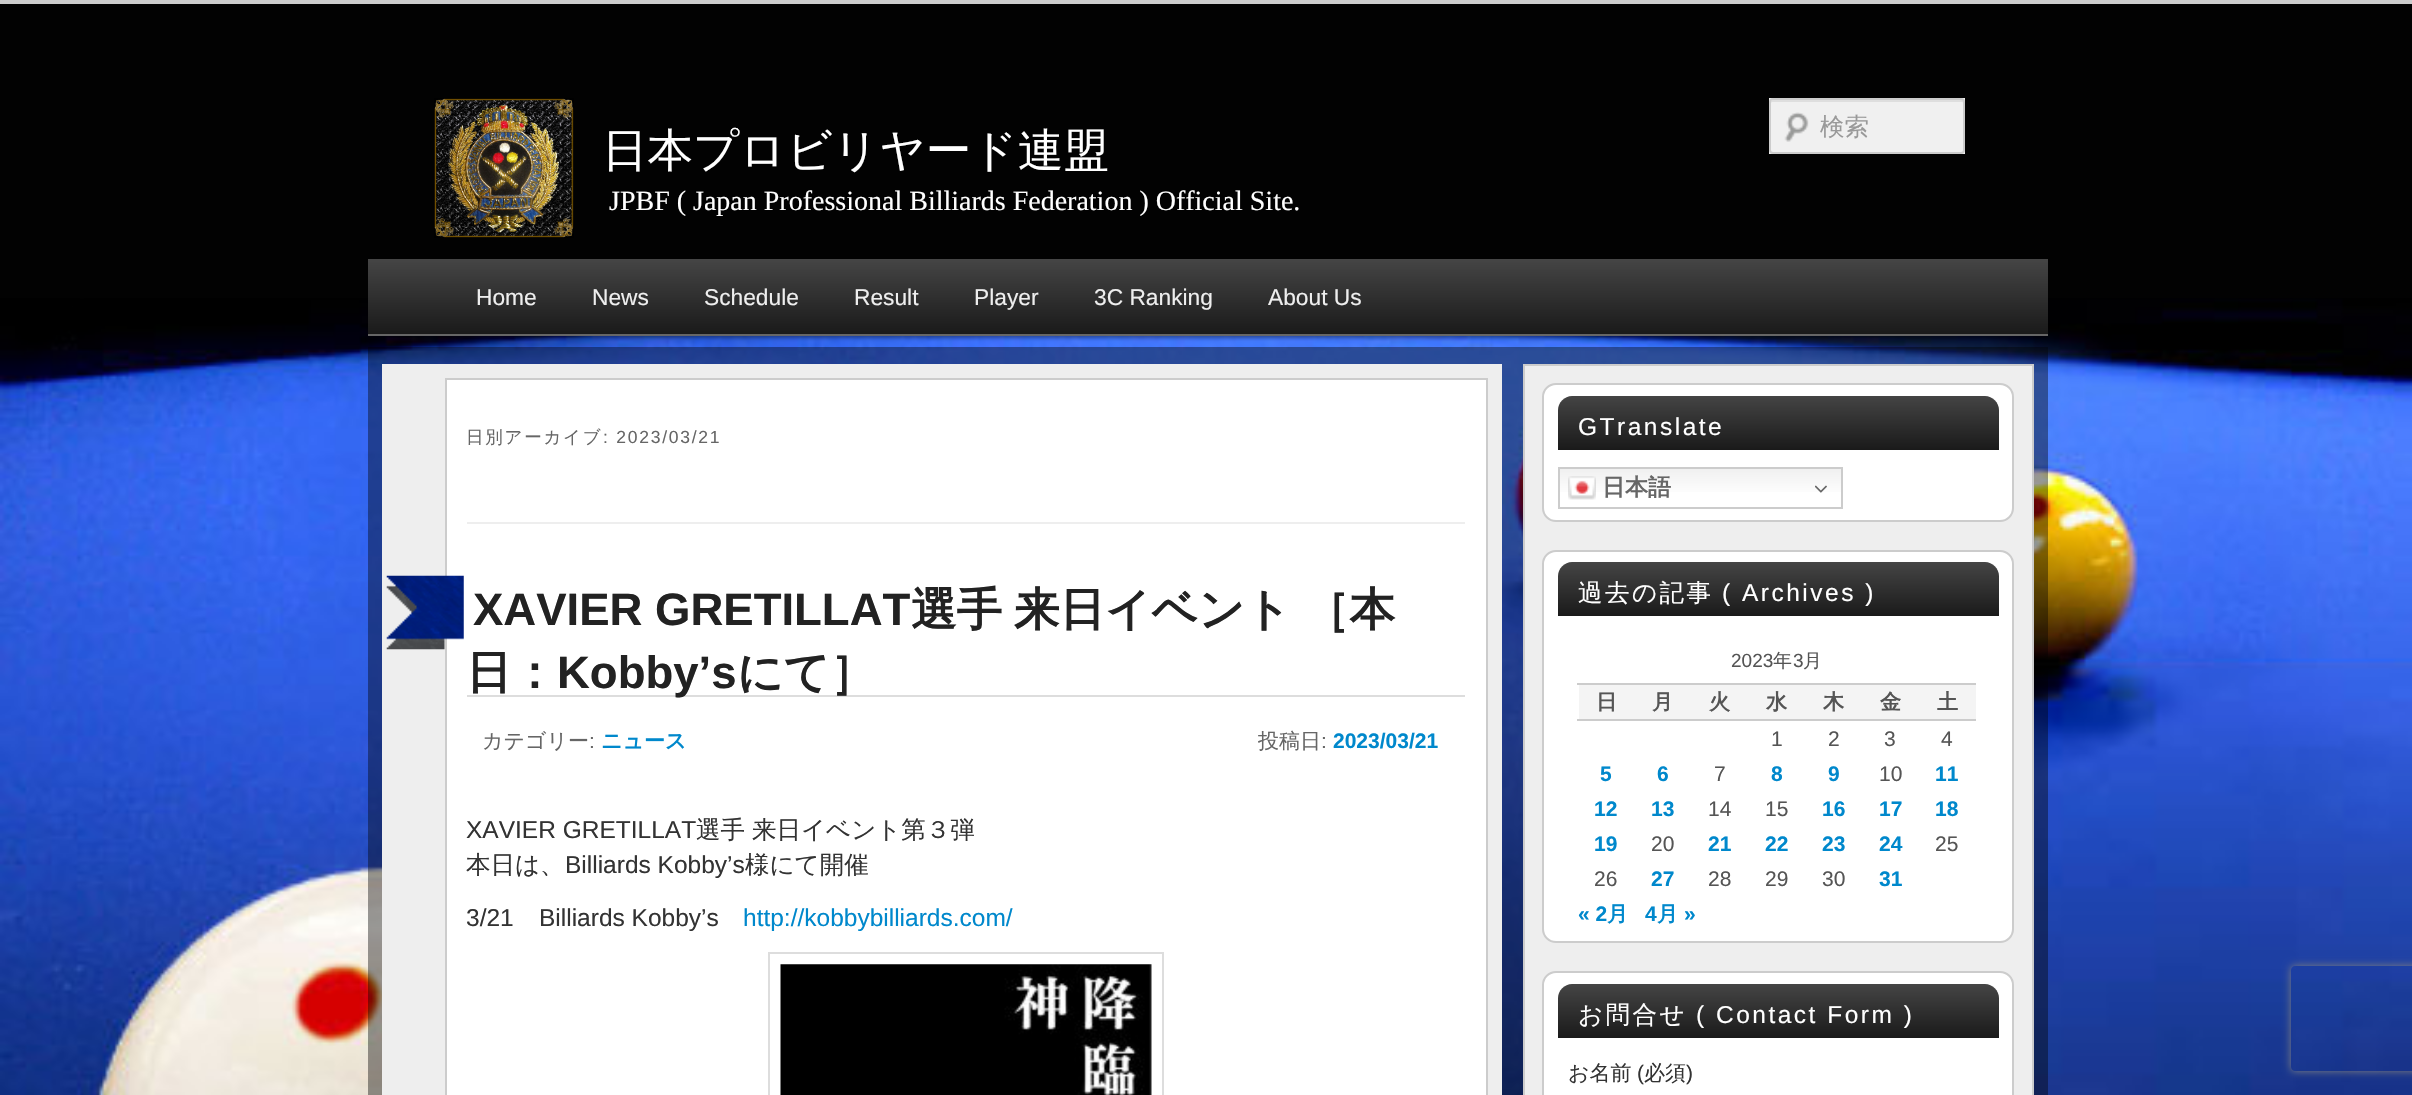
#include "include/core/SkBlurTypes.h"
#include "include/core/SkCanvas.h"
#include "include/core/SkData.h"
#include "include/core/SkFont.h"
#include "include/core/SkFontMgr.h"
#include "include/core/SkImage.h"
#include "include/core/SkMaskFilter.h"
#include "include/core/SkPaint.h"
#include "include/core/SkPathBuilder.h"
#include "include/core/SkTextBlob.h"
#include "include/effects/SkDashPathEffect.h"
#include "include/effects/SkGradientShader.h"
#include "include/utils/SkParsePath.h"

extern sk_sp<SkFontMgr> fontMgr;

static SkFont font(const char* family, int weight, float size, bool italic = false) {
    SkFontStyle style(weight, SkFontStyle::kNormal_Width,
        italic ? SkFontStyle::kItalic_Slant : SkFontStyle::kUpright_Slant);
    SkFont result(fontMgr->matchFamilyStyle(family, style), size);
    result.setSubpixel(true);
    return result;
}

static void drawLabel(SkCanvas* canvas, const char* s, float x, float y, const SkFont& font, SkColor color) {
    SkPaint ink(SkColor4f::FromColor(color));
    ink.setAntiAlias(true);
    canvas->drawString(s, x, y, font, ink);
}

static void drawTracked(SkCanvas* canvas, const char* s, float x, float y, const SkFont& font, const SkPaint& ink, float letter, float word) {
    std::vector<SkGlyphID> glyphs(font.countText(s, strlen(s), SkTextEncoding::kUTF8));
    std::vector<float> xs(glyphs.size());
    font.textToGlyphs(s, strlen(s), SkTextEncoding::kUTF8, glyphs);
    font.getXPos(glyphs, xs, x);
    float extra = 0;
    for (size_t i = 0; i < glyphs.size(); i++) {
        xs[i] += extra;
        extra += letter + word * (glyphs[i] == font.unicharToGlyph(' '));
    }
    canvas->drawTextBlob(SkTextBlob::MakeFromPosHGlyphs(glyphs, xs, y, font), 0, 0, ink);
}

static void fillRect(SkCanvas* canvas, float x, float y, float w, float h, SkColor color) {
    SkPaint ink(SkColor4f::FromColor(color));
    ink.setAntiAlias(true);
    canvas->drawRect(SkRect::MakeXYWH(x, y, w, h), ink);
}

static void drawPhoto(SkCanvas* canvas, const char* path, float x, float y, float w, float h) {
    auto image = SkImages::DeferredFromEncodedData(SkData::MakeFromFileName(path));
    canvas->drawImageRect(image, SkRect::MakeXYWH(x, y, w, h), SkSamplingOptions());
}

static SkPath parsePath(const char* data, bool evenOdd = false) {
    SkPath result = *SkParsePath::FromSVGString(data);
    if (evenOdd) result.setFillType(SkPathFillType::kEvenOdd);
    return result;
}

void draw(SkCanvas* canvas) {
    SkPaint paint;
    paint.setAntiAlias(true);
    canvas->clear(0xFF020202);
    drawPhoto(canvas, "assets/img1.png", 0, 298, 2412, 797);
    fillRect(canvas, 0, 0, 2412, 4, 0xFFCCCCCC);
    drawPhoto(canvas, "assets/img2.png", 434, 98, 140, 140);
    SkFont font1 = font("WenQuanYi Zen Hei", 500, 45.5f);
    drawLabel(canvas, "日本プロビリヤード連盟", 602, 166, font1, 0xFFFFFFFF);
    SkFont font2 = font("Liberation Serif", 400, 28);
    drawLabel(canvas, "JPBF ( Japan Professional Billiards Federation ) Official Site.", 609, 210, font2, 0xFFFFFFFF);
    fillRect(canvas, 1769, 98, 196, 56, 0xFFF0F0F0);
    drawPhoto(canvas, "assets/img3.png", 1784, 112, 25, 30);
    paint.setColor(0xFFDEDEDE);
    canvas->drawPath(parsePath("M1773 102H1962L1964 103V102C1964 101 1963 100 1962 100H1773C1772 100 1771 101 1771 102V103C1771 102 1772 102 1773 102Z"), paint);
    paint.setStroke(true);
    paint.setStrokeWidth(2);
    paint.setColor(0xFFCCCCCC);
    canvas->drawRoundRect(SkRect::MakeXYWH(1770, 99, 194, 54), 3, 3, paint);
    SkFont font3 = font("WenQuanYi Zen Hei", 500, 24.5f);
    drawLabel(canvas, "検索", 1820, 135, font3, 0xFF999999);
    paint.setStroke(false);
    paint.setColor(0x66000000);
    paint.setMaskFilter(SkMaskFilter::MakeBlur(kNormal_SkBlurStyle, 2));
    canvas->drawRect(SkRect::MakeXYWH(368, 261, 1680, 77), paint);
    paint.setMaskFilter(nullptr);
    {
        const SkColor colors[] = {0xFF454545, 0xFF1A1A1A};
        const float stops[] = {0, 1};
        const SkPoint ends[] = {{1208, 259}, {1208, 334}};
        paint.setShader(SkGradientShader::MakeLinear(ends, colors, stops, 2, SkTileMode::kClamp));
        paint.setAlpha(255);
    }
    canvas->drawRect(SkRect::MakeXYWH(368, 259, 1680, 75), paint);
    fillRect(canvas, 368, 334, 1680, 2, 0xFF666666);
    SkFont font4 = font("Liberation Sans", 400, 22.75f);
    drawLabel(canvas, "Home", 476, 305, font4, 0xFFEEEEEE);
    drawLabel(canvas, "News", 592, 305, font4, 0xFFEEEEEE);
    drawLabel(canvas, "Schedule", 704, 305, font4, 0xFFEEEEEE);
    drawLabel(canvas, "Result", 854, 305, font4, 0xFFEEEEEE);
    drawLabel(canvas, "Player", 974, 305, font4, 0xFFEEEEEE);
    drawLabel(canvas, "3C Ranking", 1094, 305, font4, 0xFFEEEEEE);
    drawLabel(canvas, "About Us", 1268, 305, font4, 0xFFEEEEEE);
    fillRect(canvas, 368, 347, 1680, 748, 0x66000000);
    fillRect(canvas, 382, 364, 1120, 731, 0xFFEEEEEE);
    paint.setShader(nullptr);
    paint.setColor(0xFFFFFFFF);
    canvas->drawRect(SkRect::MakeXYWH(446, 379, 1041, 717), paint);
    paint.setStroke(true);
    paint.setColor(0xFFCCCCCC);
    canvas->drawRect(SkRect::MakeXYWH(446, 379, 1041, 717), paint);
    fillRect(canvas, 467, 522, 998, 2, 0xFFEEEEEE);
    SkFont font5 = font("WenQuanYi Zen Hei", 500, 17.5f);
    paint.setStroke(false);
    paint.setColor(0xFF666666);
    drawTracked(canvas, "日別アーカイブ", 466, 443, font5, paint, 1.75f, 0);
    SkFont font6 = font("Liberation Sans", 400, 17.5f);
    drawTracked(canvas, ": 2023/03/21", 603, 443, font6, paint, 1.75f, 0);
    fillRect(canvas, 467, 695, 998, 2, 0xFFDDDDDD);
    drawPhoto(canvas, "assets/img4.png", 386, 575, 78, 75);
    SkFont font7 = font("Liberation Sans", 700, 45.5f);
    drawLabel(canvas, "XAVIER GRETILLAT", 473, 625, font7, 0xFF222222);
    SkFont font8 = font("WenQuanYi Zen Hei", 700, 45.5f);
    drawLabel(canvas, "選手", 911, 625, font8, 0xFF222222);
    drawLabel(canvas, "来日イベント", 1014, 625, font8, 0xFF222222);
    drawLabel(canvas, "［本", 1304, 625, font8, 0xFF222222);
    drawLabel(canvas, "日：", 466, 688, font8, 0xFF222222);
    drawLabel(canvas, "Kobby’s", 557, 688, font7, 0xFF222222);
    drawLabel(canvas, "にて］", 737, 688, font8, 0xFF222222);
    SkFont font9 = font("WenQuanYi Zen Hei", 500, 21);
    drawLabel(canvas, "カテゴリー", 482, 748, font9, 0xFF666666);
    SkFont font10 = font("Liberation Sans", 400, 21);
    drawLabel(canvas, ":", 589, 748, font10, 0xFF666666);
    SkFont font11 = font("WenQuanYi Zen Hei", 700, 21);
    drawLabel(canvas, "ニュース", 601, 748, font11, 0xFF0088CC);
    drawLabel(canvas, "投稿日", 1258, 748, font9, 0xFF666666);
    drawLabel(canvas, ":", 1321, 748, font10, 0xFF666666);
    SkFont font12 = font("Liberation Sans", 700, 21);
    drawLabel(canvas, "2023/03/21", 1333, 748, font12, 0xFF0088CC);
    SkFont font13 = font("Liberation Sans", 400, 24.5f);
    drawLabel(canvas, "XAVIER GRETILLAT", 466, 838, font13, 0xFF333333);
    drawLabel(canvas, "選手", 696, 838, font3, 0xFF333333);
    drawLabel(canvas, "来日イベント第３弾", 752, 838, font3, 0xFF333333);
    drawLabel(canvas, "本日は、", 466, 873, font3, 0xFF333333);
    drawLabel(canvas, "Billiards Kobby’s", 565, 873, font13, 0xFF333333);
    drawLabel(canvas, "様にて開催", 745, 873, font3, 0xFF333333);
    drawLabel(canvas, "3/21", 466, 926, font13, 0xFF333333);
    drawLabel(canvas, "Billiards Kobby’s", 539, 926, font13, 0xFF333333);
    drawLabel(canvas, "http://kobbybilliards.com/", 743, 926, font13, 0xFF0088CC);
    paint.setStroke(true);
    paint.setColor(0xFFDDDDDD);
    canvas->drawRect(SkRect::MakeXYWH(769, 953, 394, 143), paint);
    drawPhoto(canvas, "assets/img5.png", 780, 964, 372, 131);
    paint.setStroke(false);
    paint.setColor(0xFFEEEEEE);
    canvas->drawRect(SkRect::MakeXYWH(1524, 365, 509, 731), paint);
    paint.setStroke(true);
    paint.setColor(0xFFCCCCCC);
    canvas->drawRect(SkRect::MakeXYWH(1524, 365, 509, 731), paint);
    paint.setStroke(false);
    paint.setColor(0xFFFFFFFF);
    canvas->drawRoundRect(SkRect::MakeXYWH(1543, 384, 470, 137), 13, 13, paint);
    paint.setStroke(true);
    paint.setColor(0xFFCCCCCC);
    canvas->drawRoundRect(SkRect::MakeXYWH(1543, 384, 470, 137), 13, 13, paint);
    paint.setStroke(false);
    {
        const SkColor colors[] = {0xFF454545, 0xFF1A1A1A};
        const float stops[] = {0, 1};
        const SkPoint ends[] = {{1778, 395}, {1778, 450}};
        paint.setShader(SkGradientShader::MakeLinear(ends, colors, stops, 2, SkTileMode::kClamp));
        paint.setAlpha(255);
    }
    canvas->drawPath(parsePath("M1572 396H1985C1992.5 396 1999 402.5 1999 410V450H1558V410C1558 402.5 1564.5 396 1572 396Z"), paint);
    paint.setShader(nullptr);
    paint.setColor(0xFFFFFFFF);
    drawTracked(canvas, "GTranslate", 1578, 435, font13, paint, 2.5f, 0);
    {
        const SkColor colors[] = {0xFFEFEFEF, 0xFFFFFFFF};
        const float stops[] = {0, 0.7f};
        const SkPoint ends[] = {{1700, 467}, {1700, 509}};
        paint.setShader(SkGradientShader::MakeLinear(ends, colors, stops, 2, SkTileMode::kClamp));
        paint.setAlpha(255);
    }
    canvas->drawRect(SkRect::MakeXYWH(1560, 469, 281, 23), paint);
    paint.setStroke(true);
    paint.setShader(nullptr);
    paint.setColor(0xFFCCCCCC);
    canvas->drawRect(SkRect::MakeXYWH(1559, 468, 283, 40), paint);
    drawPhoto(canvas, "assets/img6.png", 1568, 476, 28, 24);
    SkFont font14 = font("WenQuanYi Zen Hei", 700, 23);
    drawLabel(canvas, "日本語", 1602, 495, font14, 0xFF666666);
    drawPhoto(canvas, "assets/img7.png", 1815, 485, 12, 8);
    paint.setStroke(false);
    paint.setColor(0xFFFFFFFF);
    canvas->drawRoundRect(SkRect::MakeXYWH(1543, 551, 470, 391), 13, 13, paint);
    paint.setStroke(true);
    paint.setColor(0xFFCCCCCC);
    canvas->drawRoundRect(SkRect::MakeXYWH(1543, 551, 470, 391), 13, 13, paint);
    paint.setStroke(false);
    {
        const SkColor colors[] = {0xFF454545, 0xFF1A1A1A};
        const float stops[] = {0, 1};
        const SkPoint ends[] = {{1778, 562}, {1778, 616}};
        paint.setShader(SkGradientShader::MakeLinear(ends, colors, stops, 2, SkTileMode::kClamp));
        paint.setAlpha(255);
    }
    canvas->drawPath(parsePath("M1572 562H1985C1992.5 562 1999 568.5 1999 576V616H1558V576C1558 568.5 1564.5 562 1572 562Z"), paint);
    paint.setShader(nullptr);
    paint.setColor(0xFFFFFFFF);
    drawTracked(canvas, "過去の記事", 1578, 601, font3, paint, 2.5f, 0);
    drawTracked(canvas, "( Archives )", 1722, 601, font13, paint, 2.5f, 0);
    SkFont font15 = font("Liberation Sans", 400, 19);
    drawLabel(canvas, "2023", 1731, 667, font15, 0xFF555555);
    SkFont font16 = font("WenQuanYi Zen Hei", 500, 19);
    drawLabel(canvas, "年", 1773, 667, font16, 0xFF555555);
    drawLabel(canvas, "3", 1793, 667, font15, 0xFF555555);
    drawLabel(canvas, "月", 1803, 667, font16, 0xFF555555);
    fillRect(canvas, 1579, 685, 397, 34, 0xFFF4F4F4);
    drawLabel(canvas, "日", 1596, 709, font11, 0xFF555555);
    drawLabel(canvas, "月", 1652, 709, font11, 0xFF555555);
    drawLabel(canvas, "火", 1709, 709, font11, 0xFF555555);
    drawLabel(canvas, "水", 1766, 709, font11, 0xFF555555);
    drawLabel(canvas, "木", 1823, 709, font11, 0xFF555555);
    drawLabel(canvas, "金", 1880, 709, font11, 0xFF555555);
    fillRect(canvas, 1577, 683, 399, 2, 0xFFCCCCCC);
    fillRect(canvas, 1577, 719, 399, 2, 0xFFCCCCCC);
    drawLabel(canvas, "土", 1937, 709, font11, 0xFF555555);
    drawLabel(canvas, "1", 1771, 746, font10, 0xFF555555);
    drawLabel(canvas, "2", 1828, 746, font10, 0xFF555555);
    drawLabel(canvas, "3", 1884, 746, font10, 0xFF555555);
    drawLabel(canvas, "4", 1941, 746, font10, 0xFF555555);
    drawLabel(canvas, "5", 1600, 781, font12, 0xFF0088CC);
    drawLabel(canvas, "6", 1657, 781, font12, 0xFF0088CC);
    drawLabel(canvas, "7", 1714, 781, font10, 0xFF555555);
    drawLabel(canvas, "8", 1771, 781, font12, 0xFF0088CC);
    drawLabel(canvas, "9", 1828, 781, font12, 0xFF0088CC);
    drawLabel(canvas, "10", 1879, 781, font10, 0xFF555555);
    drawLabel(canvas, "11", 1935, 781, font12, 0xFF0088CC);
    drawLabel(canvas, "12", 1594, 816, font12, 0xFF0088CC);
    drawLabel(canvas, "13", 1651, 816, font12, 0xFF0088CC);
    drawLabel(canvas, "14", 1708, 816, font10, 0xFF555555);
    drawLabel(canvas, "15", 1765, 816, font10, 0xFF555555);
    drawLabel(canvas, "16", 1822, 816, font12, 0xFF0088CC);
    drawLabel(canvas, "17", 1879, 816, font12, 0xFF0088CC);
    drawLabel(canvas, "18", 1935, 816, font12, 0xFF0088CC);
    drawLabel(canvas, "19", 1594, 851, font12, 0xFF0088CC);
    drawLabel(canvas, "20", 1651, 851, font10, 0xFF555555);
    drawLabel(canvas, "21", 1708, 851, font12, 0xFF0088CC);
    drawLabel(canvas, "22", 1765, 851, font12, 0xFF0088CC);
    drawLabel(canvas, "23", 1822, 851, font12, 0xFF0088CC);
    drawLabel(canvas, "24", 1879, 851, font12, 0xFF0088CC);
    drawLabel(canvas, "25", 1935, 851, font10, 0xFF555555);
    drawLabel(canvas, "26", 1594, 886, font10, 0xFF555555);
    drawLabel(canvas, "27", 1651, 886, font12, 0xFF0088CC);
    drawLabel(canvas, "28", 1708, 886, font10, 0xFF555555);
    drawLabel(canvas, "29", 1765, 886, font10, 0xFF555555);
    drawLabel(canvas, "30", 1822, 886, font10, 0xFF555555);
    drawLabel(canvas, "31", 1879, 886, font12, 0xFF0088CC);
    drawLabel(canvas, "« 2", 1578, 921, font12, 0xFF0088CC);
    drawLabel(canvas, "月", 1607, 921, font11, 0xFF0088CC);
    drawLabel(canvas, "4", 1645, 921, font12, 0xFF0088CC);
    drawLabel(canvas, "月", 1657, 921, font11, 0xFF0088CC);
    drawLabel(canvas, "»", 1684, 921, font12, 0xFF0088CC);
    canvas->drawRoundRect(SkRect::MakeXYWH(1543, 972, 470, 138), 13, 13, paint);
    paint.setStroke(true);
    paint.setColor(0xFFCCCCCC);
    canvas->drawRoundRect(SkRect::MakeXYWH(1543, 972, 470, 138), 13, 13, paint);
    paint.setStroke(false);
    {
        const SkColor colors[] = {0xFF454545, 0xFF1A1A1A};
        const float stops[] = {0, 1};
        const SkPoint ends[] = {{1778, 984}, {1778, 1038}};
        paint.setShader(SkGradientShader::MakeLinear(ends, colors, stops, 2, SkTileMode::kClamp));
        paint.setAlpha(255);
    }
    canvas->drawPath(parsePath("M1572 984H1985C1992.5 984 1999 990.5 1999 998V1038H1558V998C1558 990.5 1564.5 984 1572 984Z"), paint);
    paint.setShader(nullptr);
    paint.setColor(0xFFFFFFFF);
    drawTracked(canvas, "お問合せ", 1578, 1023, font3, paint, 2.5f, 0);
    drawTracked(canvas, "( Contact Form )", 1696, 1023, font13, paint, 2.5f, 0);
    drawLabel(canvas, "お名前", 1568, 1080, font9, 0xFF333333);
    drawLabel(canvas, "(", 1637, 1080, font10, 0xFF333333);
    drawLabel(canvas, "必須", 1644, 1080, font9, 0xFF333333);
    drawLabel(canvas, ")", 1686, 1080, font10, 0xFF333333);
    canvas->save();
    canvas->clipPath(parsePath("M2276 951H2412V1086H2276ZM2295 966H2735C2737 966 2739 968 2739 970V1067C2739 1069 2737 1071 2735 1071H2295C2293 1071 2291 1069 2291 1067V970C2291 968 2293 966 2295 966Z", true), true);
    paint.setColor(0xFF808080);
    paint.setMaskFilter(SkMaskFilter::MakeBlur(kNormal_SkBlurStyle, 4.5f));
    canvas->drawRoundRect(SkRect::MakeXYWH(2291, 966, 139, 105), 4, 4, paint);
    paint.setMaskFilter(nullptr);
    canvas->restore();
}
